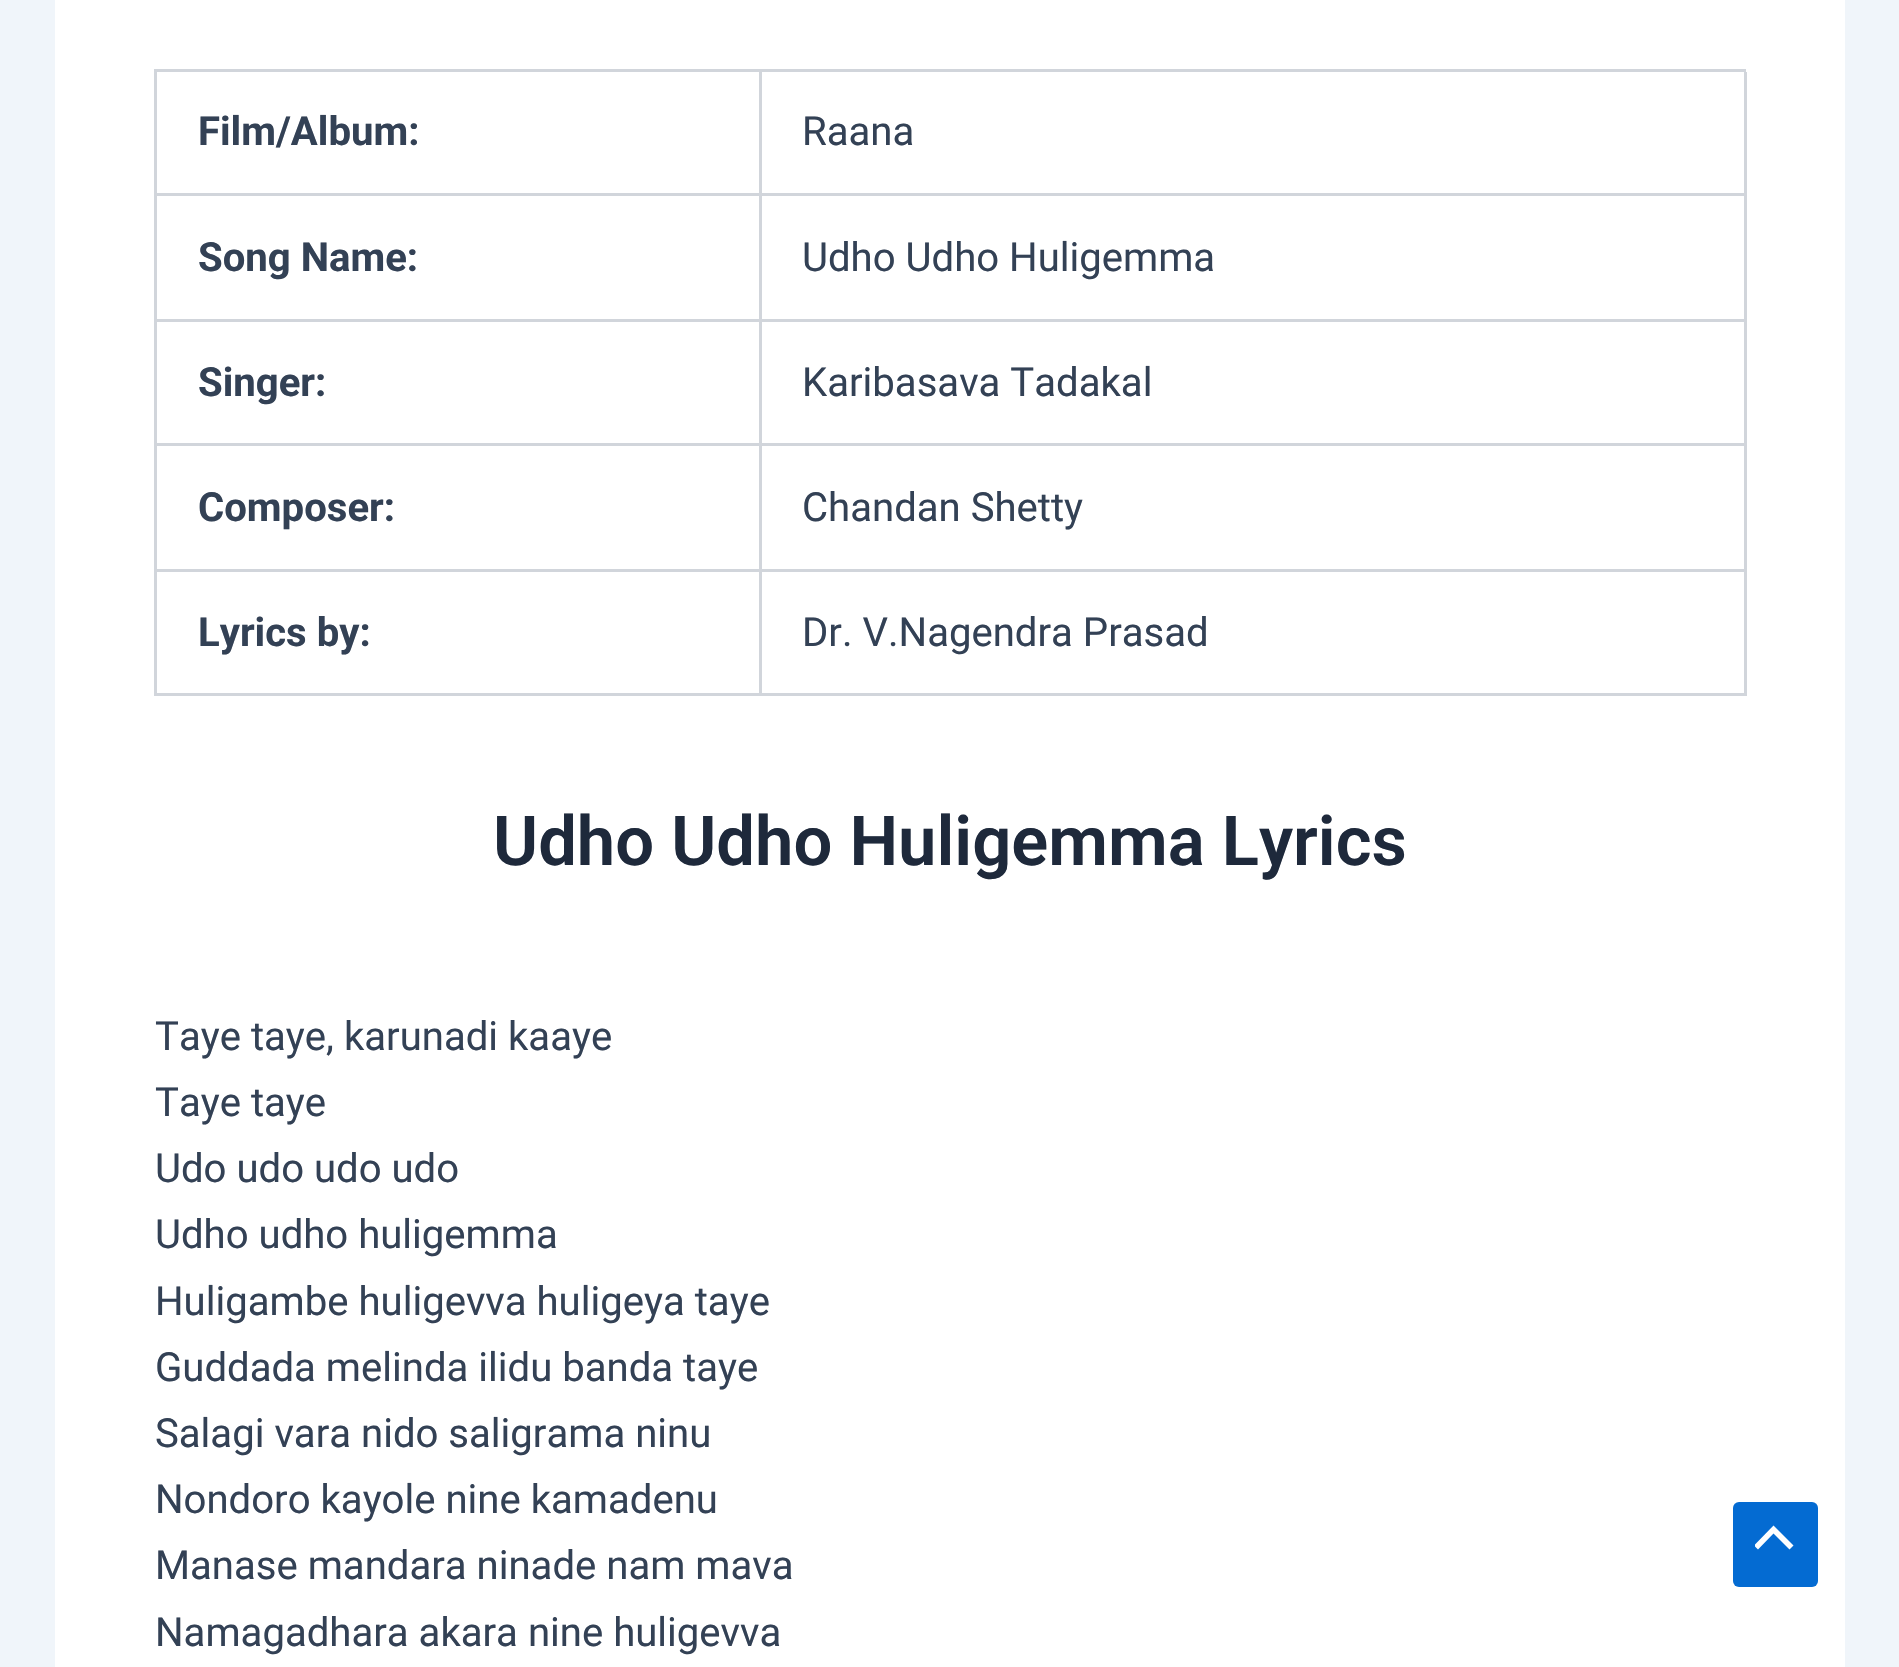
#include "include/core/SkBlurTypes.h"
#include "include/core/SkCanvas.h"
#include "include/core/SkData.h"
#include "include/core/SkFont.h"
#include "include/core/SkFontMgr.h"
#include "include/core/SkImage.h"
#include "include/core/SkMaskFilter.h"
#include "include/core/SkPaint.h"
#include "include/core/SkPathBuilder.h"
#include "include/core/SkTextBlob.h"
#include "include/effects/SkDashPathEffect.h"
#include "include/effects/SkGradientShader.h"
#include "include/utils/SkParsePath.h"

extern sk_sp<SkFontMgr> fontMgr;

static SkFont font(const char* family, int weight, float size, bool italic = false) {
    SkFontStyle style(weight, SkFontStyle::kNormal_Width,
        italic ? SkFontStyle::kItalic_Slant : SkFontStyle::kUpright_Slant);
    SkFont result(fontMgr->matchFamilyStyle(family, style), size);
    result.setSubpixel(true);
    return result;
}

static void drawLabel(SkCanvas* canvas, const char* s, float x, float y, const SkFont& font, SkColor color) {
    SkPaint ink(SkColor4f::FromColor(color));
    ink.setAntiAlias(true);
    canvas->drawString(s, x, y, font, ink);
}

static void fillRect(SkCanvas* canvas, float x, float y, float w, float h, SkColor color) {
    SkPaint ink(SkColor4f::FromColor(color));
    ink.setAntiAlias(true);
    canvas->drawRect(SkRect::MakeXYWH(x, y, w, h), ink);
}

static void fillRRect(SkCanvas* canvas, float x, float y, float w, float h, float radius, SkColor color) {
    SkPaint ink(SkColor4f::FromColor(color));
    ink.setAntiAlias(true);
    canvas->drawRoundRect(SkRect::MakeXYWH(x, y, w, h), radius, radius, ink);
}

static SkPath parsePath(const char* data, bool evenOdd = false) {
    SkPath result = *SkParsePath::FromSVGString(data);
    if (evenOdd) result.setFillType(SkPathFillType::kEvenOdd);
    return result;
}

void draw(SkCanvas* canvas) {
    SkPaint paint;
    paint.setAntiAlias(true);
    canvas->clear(0xFFF0F5FA);
    fillRect(canvas, 55, 0, 1790, 1667, 0xFFFFFFFF);
    fillRect(canvas, 154, 69, 1592, 3, 0xFFD1D5DB);
    fillRect(canvas, 154, 69, 3, 627, 0xFFD1D5DB);
    fillRect(canvas, 759, 72, 3, 123, 0xFFD1D5DB);
    fillRect(canvas, 157, 193, 605, 3, 0xFFD1D5DB);
    SkFont font1 = font("Roboto", 700, 40.1f);
    drawLabel(canvas, "Film/Album:", 198, 145, font1, 0xFF334155);
    fillRect(canvas, 1744, 72, 3, 123, 0xFFD1D5DB);
    fillRect(canvas, 762, 193, 984, 3, 0xFFD1D5DB);
    SkFont font2 = font("Roboto", 400, 40.1f);
    drawLabel(canvas, "Raana", 802, 145, font2, 0xFF334155);
    fillRect(canvas, 759, 195, 3, 501, 0xFFD1D5DB);
    fillRect(canvas, 157, 319, 605, 3, 0xFFD1D5DB);
    drawLabel(canvas, "Song Name:", 198, 271, font1, 0xFF334155);
    fillRect(canvas, 1744, 195, 3, 501, 0xFFD1D5DB);
    fillRect(canvas, 762, 319, 984, 3, 0xFFD1D5DB);
    drawLabel(canvas, "Udho Udho Huligemma", 802, 271, font2, 0xFF334155);
    fillRect(canvas, 157, 443, 1589, 3, 0xFFD1D5DB);
    drawLabel(canvas, "Singer:", 198, 396, font1, 0xFF334155);
    drawLabel(canvas, "Karibasava Tadakal", 802, 396, font2, 0xFF334155);
    fillRect(canvas, 157, 569, 1589, 3, 0xFFD1D5DB);
    drawLabel(canvas, "Composer:", 198, 521, font1, 0xFF334155);
    drawLabel(canvas, "Chandan Shetty", 802, 521, font2, 0xFF334155);
    fillRect(canvas, 157, 693, 1589, 3, 0xFFD1D5DB);
    drawLabel(canvas, "Lyrics by:", 198, 646, font1, 0xFF334155);
    drawLabel(canvas, "Dr. V.Nagendra Prasad", 802, 646, font2, 0xFF334155);
    SkFont font3 = font("Roboto", 600, 68.75f);
    drawLabel(canvas, "Udho Udho Huligemma Lyrics", 493, 865, font3, 0xFF1E293B);
    drawLabel(canvas, "Taye taye, karunadi kaaye", 155, 1050, font2, 0xFF334155);
    drawLabel(canvas, "Taye taye", 155, 1116, font2, 0xFF334155);
    drawLabel(canvas, "Udo udo udo udo", 155, 1182, font2, 0xFF334155);
    drawLabel(canvas, "Udho udho huligemma", 155, 1248, font2, 0xFF334155);
    drawLabel(canvas, "Huligambe huligevva huligeya taye", 155, 1315, font2, 0xFF334155);
    drawLabel(canvas, "Guddada melinda ilidu banda taye", 155, 1381, font2, 0xFF334155);
    drawLabel(canvas, "Salagi vara nido saligrama ninu", 155, 1447, font2, 0xFF334155);
    drawLabel(canvas, "Nondoro kayole nine kamadenu", 155, 1513, font2, 0xFF334155);
    drawLabel(canvas, "Manase mandara ninade nam mava", 155, 1579, font2, 0xFF334155);
    drawLabel(canvas, "Namagadhara akara nine huligevva", 155, 1646, font2, 0xFF334155);
    fillRRect(canvas, 1733, 1502, 85, 85, 6, 0xFF046BD2);
    canvas->save();
    canvas->clipRect(SkRect::MakeXYWH(1755, 1521, 41, 33));
    paint.setColor(0xFFFFFFFF);
    canvas->drawPath(parsePath("M1793.5 1545.5L1773.5 1525.5L1754 1545.5L1758 1549.5L1773.5 1533.5L1789.5 1549.5Z"), paint);
    canvas->restore();
}
